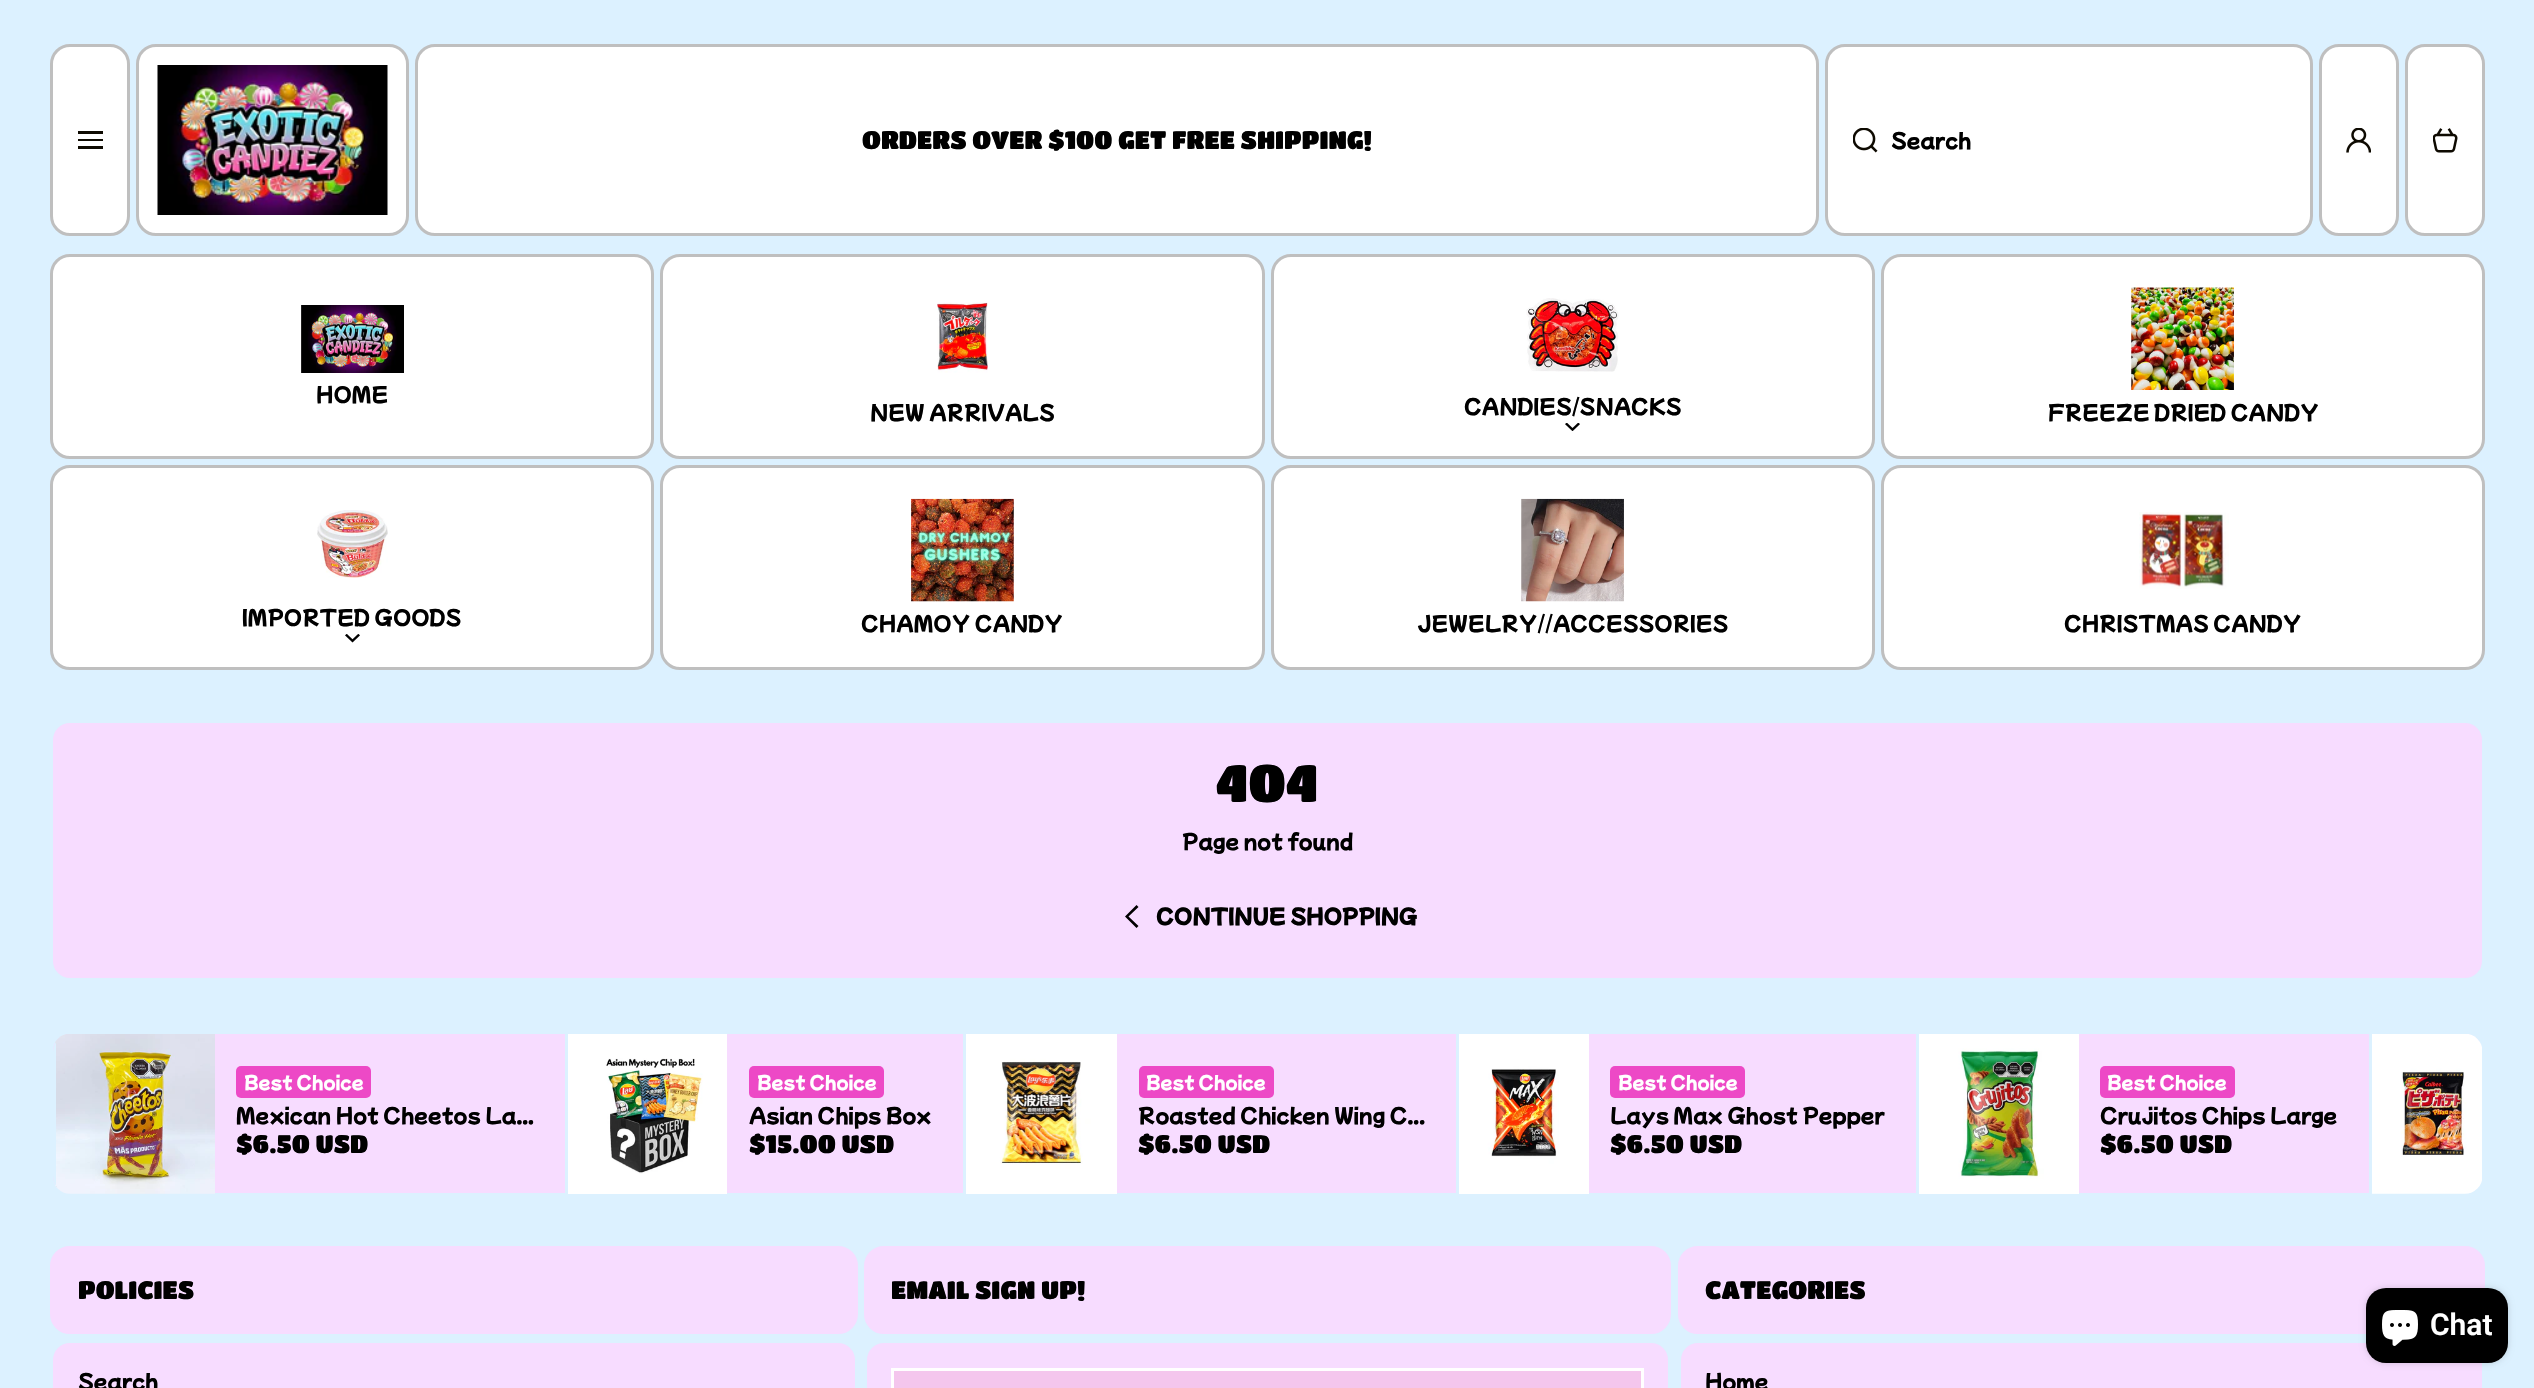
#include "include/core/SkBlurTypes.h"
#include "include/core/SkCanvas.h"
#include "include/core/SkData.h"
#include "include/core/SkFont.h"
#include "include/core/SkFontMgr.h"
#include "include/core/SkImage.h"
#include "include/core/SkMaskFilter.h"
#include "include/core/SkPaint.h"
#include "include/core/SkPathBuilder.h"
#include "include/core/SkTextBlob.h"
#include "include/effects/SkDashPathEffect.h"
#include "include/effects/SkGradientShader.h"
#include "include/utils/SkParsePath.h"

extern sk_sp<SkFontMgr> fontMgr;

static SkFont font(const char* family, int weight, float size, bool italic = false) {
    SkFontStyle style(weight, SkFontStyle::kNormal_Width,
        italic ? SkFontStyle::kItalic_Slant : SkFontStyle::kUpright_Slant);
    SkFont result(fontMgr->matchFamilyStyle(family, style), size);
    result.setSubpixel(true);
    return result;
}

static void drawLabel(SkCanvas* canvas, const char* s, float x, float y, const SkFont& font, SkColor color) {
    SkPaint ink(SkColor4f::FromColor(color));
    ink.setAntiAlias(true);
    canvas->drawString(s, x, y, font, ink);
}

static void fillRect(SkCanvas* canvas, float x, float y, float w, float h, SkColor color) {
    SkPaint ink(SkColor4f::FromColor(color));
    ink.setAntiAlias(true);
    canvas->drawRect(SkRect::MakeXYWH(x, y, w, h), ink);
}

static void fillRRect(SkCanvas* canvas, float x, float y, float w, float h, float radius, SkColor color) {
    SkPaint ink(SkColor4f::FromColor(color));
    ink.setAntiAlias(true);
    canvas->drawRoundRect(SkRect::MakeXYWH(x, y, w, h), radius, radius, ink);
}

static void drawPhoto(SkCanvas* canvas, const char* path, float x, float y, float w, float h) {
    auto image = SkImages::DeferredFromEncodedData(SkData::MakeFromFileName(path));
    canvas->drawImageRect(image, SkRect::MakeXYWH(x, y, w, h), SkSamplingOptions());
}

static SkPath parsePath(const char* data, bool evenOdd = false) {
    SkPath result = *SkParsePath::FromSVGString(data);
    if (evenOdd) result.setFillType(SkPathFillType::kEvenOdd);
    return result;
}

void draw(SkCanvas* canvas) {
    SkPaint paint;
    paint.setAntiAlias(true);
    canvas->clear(0xFFDCF1FF);
    paint.setColor(0xFFFFFFFF);
    canvas->drawRoundRect(SkRect::MakeXYWH(51.5f, 45.5f, 77, 189), 18.5f, 18.5f, paint);
    paint.setStroke(true);
    paint.setStrokeWidth(3);
    paint.setColor(0xFFBFBFBF);
    canvas->drawRoundRect(SkRect::MakeXYWH(51.5f, 45.5f, 77, 189), 18.5f, 18.5f, paint);
    fillRect(canvas, 78, 131, 25, 3, 0xFF0E0A01);
    fillRect(canvas, 78, 139, 25, 2, 0xFF0E0A01);
    fillRect(canvas, 78, 146, 25, 3, 0xFF0E0A01);
    paint.setStroke(false);
    paint.setColor(0xFFFFFFFF);
    canvas->drawRoundRect(SkRect::MakeXYWH(137.5f, 45.5f, 270, 189), 18.5f, 18.5f, paint);
    paint.setStroke(true);
    paint.setColor(0xFFBFBFBF);
    canvas->drawRoundRect(SkRect::MakeXYWH(137.5f, 45.5f, 270, 189), 18.5f, 18.5f, paint);
    drawPhoto(canvas, "assets/img1.png", 157, 65, 231, 150);
    paint.setStroke(false);
    paint.setColor(0xFFFFFFFF);
    canvas->drawRoundRect(SkRect::MakeXYWH(416.5f, 45.5f, 1401, 189), 18.5f, 18.5f, paint);
    paint.setStroke(true);
    paint.setColor(0xFFBFBFBF);
    canvas->drawRoundRect(SkRect::MakeXYWH(416.5f, 45.5f, 1401, 189), 18.5f, 18.5f, paint);
    SkFont font1 = font("Titan One", 400, 25);
    drawLabel(canvas, "ORDERS OVER $100 GET FREE SHIPPING!", 862, 149, font1, 0xFF000000);
    paint.setStroke(false);
    paint.setColor(0xFFFFFFFF);
    canvas->drawRoundRect(SkRect::MakeXYWH(1826.5f, 45.5f, 485, 189), 18.5f, 18.5f, paint);
    paint.setStroke(true);
    paint.setColor(0xFFBFBFBF);
    canvas->drawRoundRect(SkRect::MakeXYWH(1826.5f, 45.5f, 485, 189), 18.5f, 18.5f, paint);
    drawPhoto(canvas, "assets/img2.png", 1853, 128, 25, 25);
    SkFont font2 = font("Mochiy Pop P One", 400, 20);
    drawLabel(canvas, "Search", 1891, 148, font2, 0xFF000000);
    paint.setStroke(false);
    paint.setColor(0xFFFFFFFF);
    canvas->drawRoundRect(SkRect::MakeXYWH(2320.5f, 45.5f, 77, 189), 18.5f, 18.5f, paint);
    paint.setStroke(true);
    paint.setColor(0xFFBFBFBF);
    canvas->drawRoundRect(SkRect::MakeXYWH(2320.5f, 45.5f, 77, 189), 18.5f, 18.5f, paint);
    drawPhoto(canvas, "assets/img3.png", 2346, 128, 25, 25);
    paint.setStroke(false);
    paint.setColor(0xFFFFFFFF);
    canvas->drawRoundRect(SkRect::MakeXYWH(2406.5f, 45.5f, 77, 189), 18.5f, 18.5f, paint);
    paint.setStroke(true);
    paint.setColor(0xFFBFBFBF);
    canvas->drawRoundRect(SkRect::MakeXYWH(2406.5f, 45.5f, 77, 189), 18.5f, 18.5f, paint);
    drawPhoto(canvas, "assets/img4.png", 2433, 128, 25, 25);
    paint.setStroke(false);
    paint.setColor(0xFFFFFFFF);
    canvas->drawRoundRect(SkRect::MakeXYWH(51.5f, 255.5f, 601, 202), 18.5f, 18.5f, paint);
    paint.setStroke(true);
    paint.setColor(0xFFBFBFBF);
    canvas->drawRoundRect(SkRect::MakeXYWH(51.5f, 255.5f, 601, 202), 18.5f, 18.5f, paint);
    drawPhoto(canvas, "assets/img5.png", 301, 305, 103, 68);
    drawLabel(canvas, "HOME", 316, 402, font2, 0xFF000000);
    paint.setStroke(false);
    paint.setColor(0xFFFFFFFF);
    canvas->drawRoundRect(SkRect::MakeXYWH(661.5f, 255.5f, 602, 202), 18.5f, 18.5f, paint);
    paint.setStroke(true);
    paint.setColor(0xFFBFBFBF);
    canvas->drawRoundRect(SkRect::MakeXYWH(661.5f, 255.5f, 602, 202), 18.5f, 18.5f, paint);
    drawPhoto(canvas, "assets/img6.png", 937, 302, 51, 71);
    drawLabel(canvas, "NEW ARRIVALS", 870, 420, font2, 0xFF000000);
    paint.setStroke(false);
    paint.setColor(0xFFFFFFFF);
    canvas->drawRoundRect(SkRect::MakeXYWH(1272.5f, 255.5f, 601, 202), 18.5f, 18.5f, paint);
    paint.setStroke(true);
    paint.setColor(0xFFBFBFBF);
    canvas->drawRoundRect(SkRect::MakeXYWH(1272.5f, 255.5f, 601, 202), 18.5f, 18.5f, paint);
    drawPhoto(canvas, "assets/img7.png", 1526, 298, 93, 74);
    drawLabel(canvas, "CANDIES/SNACKS", 1464, 414, font2, 0xFF000000);
    drawPhoto(canvas, "assets/img8.png", 1565, 423, 15, 8);
    paint.setStroke(false);
    paint.setColor(0xFFFFFFFF);
    canvas->drawRoundRect(SkRect::MakeXYWH(1882.5f, 255.5f, 601, 202), 18.5f, 18.5f, paint);
    paint.setStroke(true);
    paint.setColor(0xFFBFBFBF);
    canvas->drawRoundRect(SkRect::MakeXYWH(1882.5f, 255.5f, 601, 202), 18.5f, 18.5f, paint);
    drawPhoto(canvas, "assets/img9.png", 2131, 287, 103, 103);
    drawLabel(canvas, "FREEZE DRIED CANDY", 2048, 420, font2, 0xFF000000);
    paint.setStroke(false);
    paint.setColor(0xFFFFFFFF);
    canvas->drawRoundRect(SkRect::MakeXYWH(51.5f, 466.5f, 601, 202), 18.5f, 18.5f, paint);
    paint.setStroke(true);
    paint.setColor(0xFFBFBFBF);
    canvas->drawRoundRect(SkRect::MakeXYWH(51.5f, 466.5f, 601, 202), 18.5f, 18.5f, paint);
    drawPhoto(canvas, "assets/img10.png", 317, 510, 71, 68);
    drawLabel(canvas, "IMPORTED GOODS", 242, 625, font2, 0xFF000000);
    drawPhoto(canvas, "assets/img11.png", 345, 634, 15, 9);
    paint.setStroke(false);
    paint.setColor(0xFFFFFFFF);
    canvas->drawRoundRect(SkRect::MakeXYWH(661.5f, 466.5f, 602, 202), 18.5f, 18.5f, paint);
    paint.setStroke(true);
    paint.setColor(0xFFBFBFBF);
    canvas->drawRoundRect(SkRect::MakeXYWH(661.5f, 466.5f, 602, 202), 18.5f, 18.5f, paint);
    drawPhoto(canvas, "assets/img12.png", 911, 498, 103, 104);
    drawLabel(canvas, "CHAMOY CANDY", 861, 631, font2, 0xFF000000);
    paint.setStroke(false);
    paint.setColor(0xFFFFFFFF);
    canvas->drawRoundRect(SkRect::MakeXYWH(1272.5f, 466.5f, 601, 202), 18.5f, 18.5f, paint);
    paint.setStroke(true);
    paint.setColor(0xFFBFBFBF);
    canvas->drawRoundRect(SkRect::MakeXYWH(1272.5f, 466.5f, 601, 202), 18.5f, 18.5f, paint);
    drawPhoto(canvas, "assets/img13.png", 1521, 498, 103, 104);
    drawLabel(canvas, "JEWELRY//ACCESSORIES", 1417, 631, font2, 0xFF000000);
    paint.setStroke(false);
    paint.setColor(0xFFFFFFFF);
    canvas->drawRoundRect(SkRect::MakeXYWH(1882.5f, 466.5f, 601, 202), 18.5f, 18.5f, paint);
    paint.setStroke(true);
    paint.setColor(0xFFBFBFBF);
    canvas->drawRoundRect(SkRect::MakeXYWH(1882.5f, 466.5f, 601, 202), 18.5f, 18.5f, paint);
    drawPhoto(canvas, "assets/img14.png", 2139, 512, 90, 77);
    drawLabel(canvas, "CHRISTMAS CANDY", 2064, 631, font2, 0xFF000000);
    paint.setStroke(false);
    paint.setColor(0xFFF7DCFF);
    canvas->drawRoundRect(SkRect::MakeXYWH(51.5f, 721.5f, 2432, 258), 18.5f, 18.5f, paint);
    paint.setStroke(true);
    paint.setColor(0xFFDCF1FF);
    canvas->drawRoundRect(SkRect::MakeXYWH(51.5f, 721.5f, 2432, 258), 18.5f, 18.5f, paint);
    SkFont font3 = font("Titan One", 400, 52);
    drawLabel(canvas, "404", 1216, 802, font3, 0xFF000000);
    drawLabel(canvas, "Page not found", 1182, 849, font2, 0xFF000000);
    paint.setStroke(false);
    paint.setColor(0xFF000000);
    canvas->drawPath(parsePath("M1136.5 905L1138.5 907L1128.5 916.5L1138.5 926L1136.5 928L1125 916.5Z", true), paint);
    SkFont font4 = font("Mochiy Pop P One", 700, 20);
    drawLabel(canvas, "CONTINUE SHOPPING", 1156, 924, font4, 0xFF000000);
    paint.setColor(0xFFF7DCFF);
    canvas->drawRoundRect(SkRect::MakeXYWH(51.5f, 1032.5f, 2432, 162), 18.5f, 18.5f, paint);
    paint.setStroke(true);
    paint.setColor(0xFFDCF1FF);
    canvas->drawRoundRect(SkRect::MakeXYWH(51.5f, 1032.5f, 2432, 162), 18.5f, 18.5f, paint);
    drawPhoto(canvas, "assets/img15.png", 55, 1034, 160, 160);
    canvas->save();
    canvas->clipPath(parsePath("M71 1034H2465C2475 1034 2483 1042 2483 1052V1176C2483 1186 2475 1194 2465 1194H71C61 1194 53 1186 53 1176V1052C53 1042 61 1034 71 1034Z"), true);
    fillRect(canvas, 53, 1034, 3, 160, 0xFFDCF1FF);
    canvas->restore();
    fillRRect(canvas, 236, 1066, 135, 32, 5, 0xFFED49C6);
    SkFont font5 = font("Mochiy Pop P One", 400, 17.5f);
    drawLabel(canvas, "Best Choice", 244, 1089, font5, 0xFFFFFFFF);
    drawLabel(canvas, "Mexican Hot Cheetos La...", 236, 1123, font2, 0xFF000000);
    drawLabel(canvas, "$6.50 USD", 236, 1153, font1, 0xFF000000);
    fillRect(canvas, 565, 1034, 3, 160, 0xFFDCF1FF);
    drawPhoto(canvas, "assets/img16.png", 568, 1034, 159, 160);
    fillRRect(canvas, 749, 1066, 135, 32, 5, 0xFFED49C6);
    drawLabel(canvas, "Best Choice", 757, 1089, font5, 0xFFFFFFFF);
    drawLabel(canvas, "Asian Chips Box", 749, 1123, font2, 0xFF000000);
    drawLabel(canvas, "$15.00 USD", 749, 1153, font1, 0xFF000000);
    fillRect(canvas, 963, 1034, 3, 160, 0xFFDCF1FF);
    drawPhoto(canvas, "assets/img17.png", 966, 1034, 151, 160);
    fillRRect(canvas, 1139, 1066, 135, 32, 5, 0xFFED49C6);
    drawLabel(canvas, "Best Choice", 1146, 1089, font5, 0xFFFFFFFF);
    drawLabel(canvas, "Roasted Chicken Wing C...", 1138, 1123, font2, 0xFF000000);
    drawLabel(canvas, "$6.50 USD", 1138, 1153, font1, 0xFF000000);
    fillRect(canvas, 1456, 1034, 3, 160, 0xFFDCF1FF);
    drawPhoto(canvas, "assets/img18.png", 1459, 1034, 130, 160);
    fillRRect(canvas, 1610, 1066, 135, 32, 5, 0xFFED49C6);
    drawLabel(canvas, "Best Choice", 1618, 1089, font5, 0xFFFFFFFF);
    drawLabel(canvas, "Lays Max Ghost Pepper", 1610, 1123, font2, 0xFF000000);
    drawLabel(canvas, "$6.50 USD", 1610, 1153, font1, 0xFF000000);
    fillRect(canvas, 1916, 1034, 3, 160, 0xFFDCF1FF);
    drawPhoto(canvas, "assets/img19.png", 1919, 1034, 160, 160);
    fillRRect(canvas, 2100, 1066, 135, 32, 5, 0xFFED49C6);
    drawLabel(canvas, "Best Choice", 2107, 1089, font5, 0xFFFFFFFF);
    drawLabel(canvas, "Crujitos Chips Large", 2100, 1123, font2, 0xFF000000);
    drawLabel(canvas, "$6.50 USD", 2100, 1153, font1, 0xFF000000);
    fillRect(canvas, 2369, 1034, 3, 160, 0xFFDCF1FF);
    drawPhoto(canvas, "assets/img20.png", 2372, 1034, 110, 160);
    paint.setStroke(false);
    paint.setColor(0xFFF7DCFF);
    canvas->drawRoundRect(SkRect::MakeXYWH(51.5f, 1247.5f, 805, 85), 18.5f, 18.5f, paint);
    paint.setStroke(true);
    canvas->drawRoundRect(SkRect::MakeXYWH(51.5f, 1247.5f, 805, 85), 18.5f, 18.5f, paint);
    drawLabel(canvas, "POLICIES", 78, 1299, font1, 0xFF000000);
    paint.setStroke(false);
    canvas->drawRoundRect(SkRect::MakeXYWH(865.5f, 1247.5f, 804, 85), 18.5f, 18.5f, paint);
    paint.setStroke(true);
    canvas->drawRoundRect(SkRect::MakeXYWH(865.5f, 1247.5f, 804, 85), 18.5f, 18.5f, paint);
    drawLabel(canvas, "EMAIL SIGN UP!", 891, 1299, font1, 0xFF000000);
    paint.setStroke(false);
    canvas->drawRoundRect(SkRect::MakeXYWH(865.5f, 1341.5f, 804, 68), 18.5f, 18.5f, paint);
    paint.setStroke(true);
    paint.setColor(0xFFDCF1FF);
    canvas->drawRoundRect(SkRect::MakeXYWH(865.5f, 1341.5f, 804, 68), 18.5f, 18.5f, paint);
    paint.setStroke(false);
    paint.setColor(0xFFF4C6ED);
    canvas->drawRect(SkRect::MakeXYWH(892.5f, 1369.5f, 750, 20), paint);
    paint.setStroke(true);
    paint.setColor(0xFFFFFFFF);
    canvas->drawRect(SkRect::MakeXYWH(892.5f, 1369.5f, 750, 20), paint);
    paint.setStroke(false);
    paint.setColor(0xFFF7DCFF);
    canvas->drawRoundRect(SkRect::MakeXYWH(1679.5f, 1247.5f, 804, 85), 18.5f, 18.5f, paint);
    paint.setStroke(true);
    canvas->drawRoundRect(SkRect::MakeXYWH(1679.5f, 1247.5f, 804, 85), 18.5f, 18.5f, paint);
    drawLabel(canvas, "CATEGORIES", 1705, 1299, font1, 0xFF000000);
    paint.setStroke(false);
    canvas->drawRoundRect(SkRect::MakeXYWH(51.5f, 1341.5f, 805, 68), 18.5f, 18.5f, paint);
    paint.setStroke(true);
    paint.setColor(0xFFDCF1FF);
    canvas->drawRoundRect(SkRect::MakeXYWH(51.5f, 1341.5f, 805, 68), 18.5f, 18.5f, paint);
    drawLabel(canvas, "Search", 78, 1389, font2, 0xFF000000);
    paint.setStroke(false);
    paint.setColor(0xFFF7DCFF);
    canvas->drawRoundRect(SkRect::MakeXYWH(1679.5f, 1341.5f, 804, 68), 18.5f, 18.5f, paint);
    paint.setStroke(true);
    paint.setColor(0xFFDCF1FF);
    canvas->drawRoundRect(SkRect::MakeXYWH(1679.5f, 1341.5f, 804, 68), 18.5f, 18.5f, paint);
    drawLabel(canvas, "Home", 1705, 1389, font2, 0xFF000000);
    paint.setStroke(false);
    paint.setColor(0x26000000);
    paint.setMaskFilter(SkMaskFilter::MakeBlur(kNormal_SkBlurStyle, 3));
    canvas->drawRoundRect(SkRect::MakeXYWH(2366, 1288, 142, 75), 20, 20, paint);
    paint.setMaskFilter(nullptr);
    fillRRect(canvas, 2366, 1288, 142, 75, 20, 0xFF000000);
    drawPhoto(canvas, "assets/img21.png", 2382, 1310, 36, 36);
    SkFont font6 = font("Roboto", 600, 30);
    drawLabel(canvas, "Chat", 2430, 1335, font6, 0xFFFFFFFF);
}
